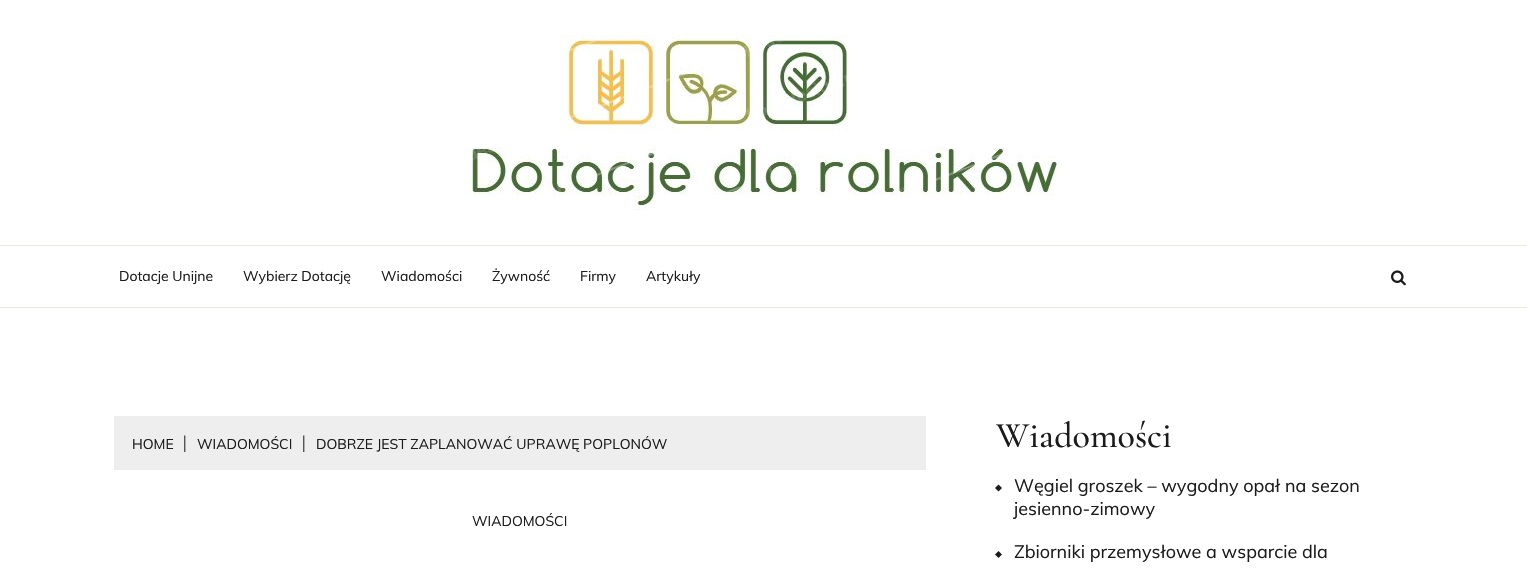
#include "include/core/SkBlurTypes.h"
#include "include/core/SkCanvas.h"
#include "include/core/SkData.h"
#include "include/core/SkFont.h"
#include "include/core/SkFontMgr.h"
#include "include/core/SkImage.h"
#include "include/core/SkMaskFilter.h"
#include "include/core/SkPaint.h"
#include "include/core/SkPathBuilder.h"
#include "include/core/SkTextBlob.h"
#include "include/effects/SkDashPathEffect.h"
#include "include/effects/SkGradientShader.h"
#include "include/utils/SkParsePath.h"

extern sk_sp<SkFontMgr> fontMgr;

static SkFont font(const char* family, int weight, float size, bool italic = false) {
    SkFontStyle style(weight, SkFontStyle::kNormal_Width,
        italic ? SkFontStyle::kItalic_Slant : SkFontStyle::kUpright_Slant);
    SkFont result(fontMgr->matchFamilyStyle(family, style), size);
    result.setSubpixel(true);
    return result;
}

static void drawLabel(SkCanvas* canvas, const char* s, float x, float y, const SkFont& font, SkColor color) {
    SkPaint ink(SkColor4f::FromColor(color));
    ink.setAntiAlias(true);
    canvas->drawString(s, x, y, font, ink);
}

static void fillRect(SkCanvas* canvas, float x, float y, float w, float h, SkColor color) {
    SkPaint ink(SkColor4f::FromColor(color));
    ink.setAntiAlias(true);
    canvas->drawRect(SkRect::MakeXYWH(x, y, w, h), ink);
}

static void drawPhoto(SkCanvas* canvas, const char* path, float x, float y, float w, float h) {
    auto image = SkImages::DeferredFromEncodedData(SkData::MakeFromFileName(path));
    canvas->drawImageRect(image, SkRect::MakeXYWH(x, y, w, h), SkSamplingOptions());
}

static SkPath parsePath(const char* data, bool evenOdd = false) {
    SkPath result = *SkParsePath::FromSVGString(data);
    if (evenOdd) result.setFillType(SkPathFillType::kEvenOdd);
    return result;
}

void draw(SkCanvas* canvas) {
    SkPaint paint;
    paint.setAntiAlias(true);
    canvas->clear(0xFFFFFFFF);
    drawPhoto(canvas, "assets/img1.png", 464, 35, 600, 175);
    fillRect(canvas, 0, 245, 1527, 1, 0xFFEEE6E2);
    fillRect(canvas, 0, 307, 1527, 1, 0xFFEEE6E2);
    SkFont font1 = font("Muli", 400, 14);
    drawLabel(canvas, "Dotacje Unijne", 119, 281, font1, 0xFF1B1B1B);
    drawLabel(canvas, "Wybierz Dotację", 243, 281, font1, 0xFF1B1B1B);
    drawLabel(canvas, "Wiadomości", 381, 281, font1, 0xFF1B1B1B);
    drawLabel(canvas, "Żywność", 492, 281, font1, 0xFF1B1B1B);
    drawLabel(canvas, "Firmy", 580, 281, font1, 0xFF1B1B1B);
    drawLabel(canvas, "Artykuły", 646, 281, font1, 0xFF1B1B1B);
    drawPhoto(canvas, "assets/img2.png", 1391, 270, 15, 16);
    fillRect(canvas, 114, 416, 812, 54, 0xFFEEEEEE);
    drawLabel(canvas, "HOME", 132, 449, font1, 0xFF1B1B1B);
    SkFont font2 = font("Liberation Serif", 400, 18);
    drawLabel(canvas, "|", 183, 448, font2, 0xFF1B1B1B);
    drawLabel(canvas, "WIADOMOŚCI", 197, 449, font1, 0xFF1B1B1B);
    drawLabel(canvas, "|", 302, 448, font2, 0xFF1B1B1B);
    drawLabel(canvas, "DOBRZE JEST ZAPLANOWAĆ UPRAWĘ POPLONÓW", 316, 449, font1, 0xFF1B1B1B);
    drawLabel(canvas, "WIADOMOŚCI", 472, 526, font1, 0xFF1B1B1B);
    SkFont font3 = font("Cormorant Garamond", 500, 36);
    drawLabel(canvas, "Wiadomości", 996, 447, font3, 0xFF1B1B1B);
    paint.setColor(0xFF1B1B1B);
    canvas->drawPath(parsePath("M998.5 484.5L1002 488L998.5 491.5L995 488Z"), paint);
    SkFont font4 = font("Muli", 400, 18);
    drawLabel(canvas, "Węgiel groszek – wygodny opał na sezon", 1014, 492, font4, 0xFF1B1B1B);
    drawLabel(canvas, "jesienno-zimowy", 1014, 515, font4, 0xFF1B1B1B);
    canvas->drawPath(parsePath("M998.5 551L1002 554.5L998.5 558L995 554.5Z"), paint);
    drawLabel(canvas, "Zbiorniki przemysłowe a wsparcie dla", 1014, 558, font4, 0xFF1B1B1B);
}
